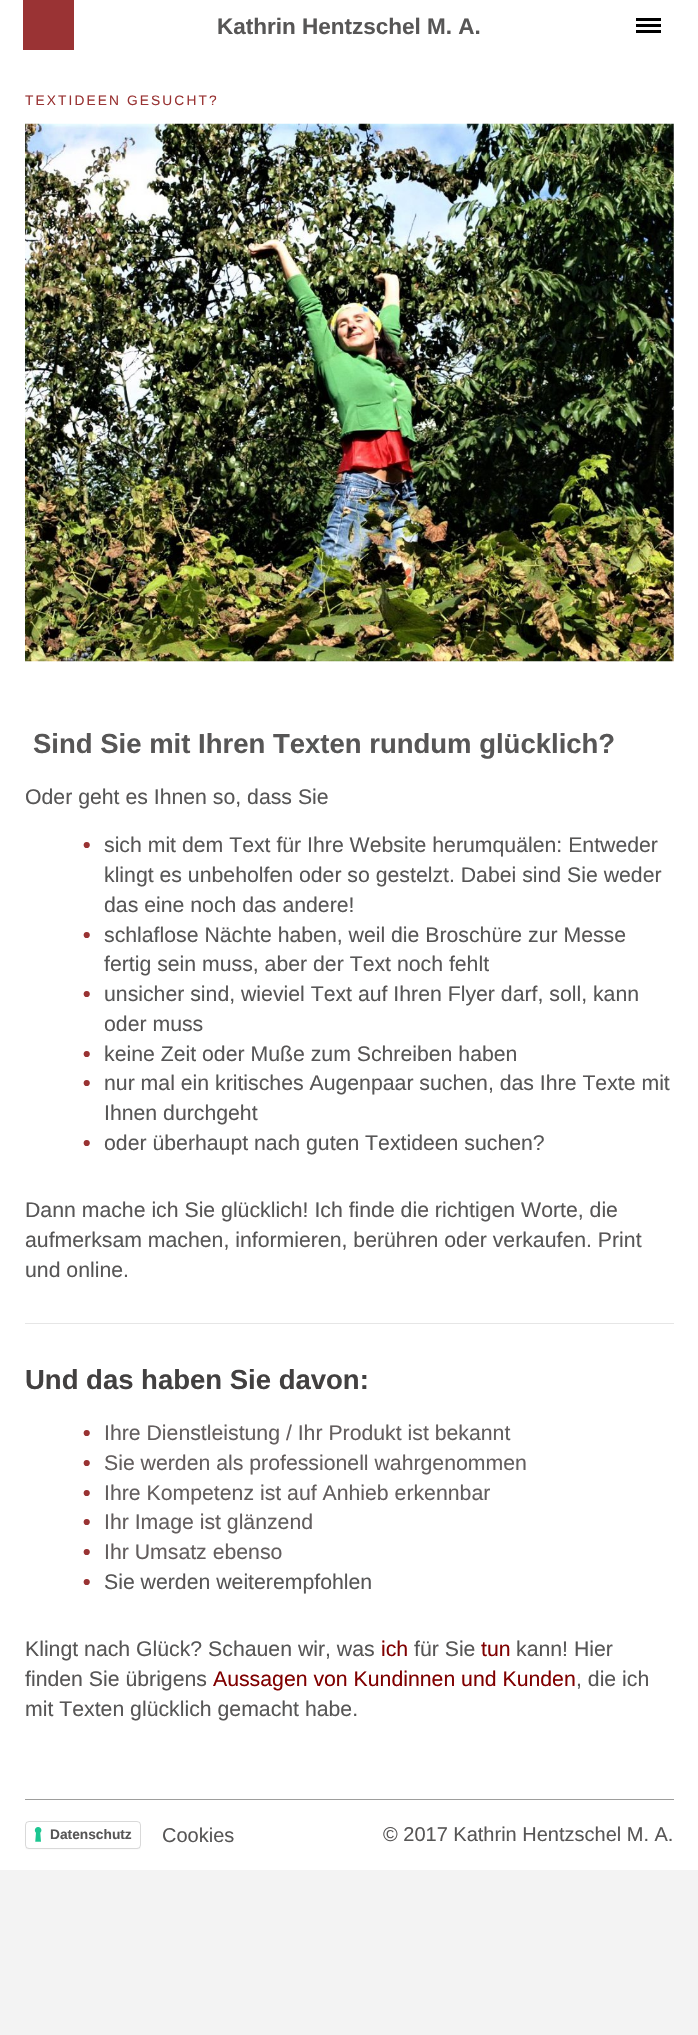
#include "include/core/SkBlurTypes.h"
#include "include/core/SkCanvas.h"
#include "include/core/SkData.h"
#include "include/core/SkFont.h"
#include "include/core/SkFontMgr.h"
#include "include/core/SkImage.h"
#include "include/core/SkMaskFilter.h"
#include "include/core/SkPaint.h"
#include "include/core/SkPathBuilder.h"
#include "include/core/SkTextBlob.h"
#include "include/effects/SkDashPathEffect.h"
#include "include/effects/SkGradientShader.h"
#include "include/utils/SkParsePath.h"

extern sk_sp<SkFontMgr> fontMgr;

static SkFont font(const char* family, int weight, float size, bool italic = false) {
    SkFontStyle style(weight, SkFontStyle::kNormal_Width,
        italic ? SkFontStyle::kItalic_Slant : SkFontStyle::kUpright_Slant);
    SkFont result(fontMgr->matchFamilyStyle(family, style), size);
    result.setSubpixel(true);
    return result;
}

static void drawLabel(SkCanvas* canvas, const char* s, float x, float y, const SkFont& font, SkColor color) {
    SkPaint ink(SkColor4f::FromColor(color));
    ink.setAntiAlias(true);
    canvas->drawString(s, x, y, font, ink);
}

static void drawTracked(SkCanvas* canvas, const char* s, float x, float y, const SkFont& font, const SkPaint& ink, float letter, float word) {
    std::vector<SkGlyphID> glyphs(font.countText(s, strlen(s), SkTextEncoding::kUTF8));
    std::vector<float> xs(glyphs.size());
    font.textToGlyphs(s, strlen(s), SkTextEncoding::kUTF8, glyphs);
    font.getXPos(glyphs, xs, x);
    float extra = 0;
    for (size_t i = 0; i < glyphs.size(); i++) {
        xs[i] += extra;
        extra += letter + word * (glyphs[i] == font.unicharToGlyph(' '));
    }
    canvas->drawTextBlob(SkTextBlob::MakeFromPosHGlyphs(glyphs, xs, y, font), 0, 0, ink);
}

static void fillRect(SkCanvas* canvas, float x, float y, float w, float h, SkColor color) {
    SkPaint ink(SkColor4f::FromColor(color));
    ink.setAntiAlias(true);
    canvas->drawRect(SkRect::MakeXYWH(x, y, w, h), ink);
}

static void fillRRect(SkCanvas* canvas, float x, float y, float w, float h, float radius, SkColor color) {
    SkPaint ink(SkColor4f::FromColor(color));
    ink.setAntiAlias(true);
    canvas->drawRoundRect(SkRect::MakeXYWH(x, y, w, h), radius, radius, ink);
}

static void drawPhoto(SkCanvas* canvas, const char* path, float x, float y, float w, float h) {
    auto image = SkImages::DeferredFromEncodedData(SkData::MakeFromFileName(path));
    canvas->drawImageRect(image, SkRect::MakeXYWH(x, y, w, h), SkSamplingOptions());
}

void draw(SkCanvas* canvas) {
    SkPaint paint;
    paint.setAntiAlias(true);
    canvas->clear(0xFFF3F3F3);
    fillRect(canvas, 0, 0, 698, 1870, 0xFFFFFFFF);
    fillRect(canvas, 23, 0, 51, 50, 0xFF9A3334);
    SkFont font1 = font("Liberation Sans", 700, 22.5f);
    drawLabel(canvas, "Kathrin Hentzschel M. A.", 217, 34, font1, 0xFF575656);
    fillRect(canvas, 636, 18, 25, 3, 0xFF000000);
    fillRect(canvas, 636, 24, 25, 3, 0xFF000000);
    fillRect(canvas, 636, 30, 25, 3, 0xFF000000);
    SkFont font2 = font("Liberation Sans", 400, 13.75f);
    paint.setColor(0xFF993333);
    drawTracked(canvas, "TEXTIDEEN GESUCHT?", 25, 105, font2, paint, 2.1f, 0);
    drawPhoto(canvas, "assets/img1.png", 25, 123, 649, 539);
    SkFont font3 = font("Liberation Sans", 700, 27.5f);
    drawLabel(canvas, "Sind Sie mit Ihren Texten rundum glücklich?", 33, 753, font3, 0xFF575656);
    SkFont font4 = font("Liberation Sans", 400, 21.25f);
    drawLabel(canvas, "Oder geht es Ihnen so, dass Sie", 25, 804, font4, 0xFF575656);
    SkFont font5 = font("Liberation Sans", 700, 21.25f);
    drawLabel(canvas, "•", 83, 852, font5, 0xFF993333);
    drawLabel(canvas, "sich mit dem Text für Ihre Website herumquälen: Entweder", 104, 852, font4, 0xFF575656);
    drawLabel(canvas, "klingt es unbeholfen oder so gestelzt. Dabei sind Sie weder", 104, 882, font4, 0xFF575656);
    drawLabel(canvas, "das eine noch das andere!", 104, 912, font4, 0xFF575656);
    drawLabel(canvas, "•", 83, 942, font5, 0xFF993333);
    drawLabel(canvas, "schlaflose Nächte haben, weil die Broschüre zur Messe", 104, 942, font4, 0xFF575656);
    drawLabel(canvas, "fertig sein muss, aber der Text noch fehlt", 104, 971, font4, 0xFF575656);
    drawLabel(canvas, "•", 83, 1001, font5, 0xFF993333);
    drawLabel(canvas, "unsicher sind, wieviel Text auf Ihren Flyer darf, soll, kann", 104, 1001, font4, 0xFF575656);
    drawLabel(canvas, "oder muss", 104, 1031, font4, 0xFF575656);
    drawLabel(canvas, "•", 83, 1061, font5, 0xFF993333);
    drawLabel(canvas, "keine Zeit oder Muße zum Schreiben haben", 104, 1061, font4, 0xFF575656);
    drawLabel(canvas, "•", 83, 1090, font5, 0xFF993333);
    drawLabel(canvas, "nur mal ein kritisches Augenpaar suchen, das Ihre Texte mit", 104, 1090, font4, 0xFF575656);
    drawLabel(canvas, "Ihnen durchgeht", 104, 1120, font4, 0xFF575656);
    drawLabel(canvas, "•", 83, 1150, font5, 0xFF993333);
    drawLabel(canvas, "oder überhaupt nach guten Textideen suchen?", 104, 1150, font4, 0xFF575656);
    drawLabel(canvas, "Dann mache ich Sie glücklich! Ich finde die richtigen Worte, die", 25, 1217, font4, 0xFF575656);
    drawLabel(canvas, "aufmerksam machen, informieren, berühren oder verkaufen. Print", 25, 1247, font4, 0xFF575656);
    drawLabel(canvas, "und online.", 25, 1277, font4, 0xFF575656);
    fillRect(canvas, 25, 1323, 649, 1, 0xFFE6E6E6);
    drawLabel(canvas, "Und das haben Sie davon:", 25, 1389, font3, 0xFF424040);
    drawLabel(canvas, "•", 83, 1440, font5, 0xFF993333);
    drawLabel(canvas, "Ihre Dienstleistung / Ihr Produkt ist bekannt", 104, 1440, font4, 0xFF635E5E);
    drawLabel(canvas, "•", 83, 1470, font5, 0xFF993333);
    drawLabel(canvas, "Sie werden als professionell wahrgenommen", 104, 1470, font4, 0xFF635E5E);
    drawLabel(canvas, "•", 83, 1500, font5, 0xFF993333);
    drawLabel(canvas, "Ihre Kompetenz ist auf Anhieb erkennbar", 104, 1500, font4, 0xFF635E5E);
    drawLabel(canvas, "•", 83, 1529, font5, 0xFF993333);
    drawLabel(canvas, "Ihr Image ist glänzend", 104, 1529, font4, 0xFF635E5E);
    drawLabel(canvas, "•", 83, 1559, font5, 0xFF993333);
    drawLabel(canvas, "Ihr Umsatz ebenso", 104, 1559, font4, 0xFF635E5E);
    drawLabel(canvas, "•", 83, 1589, font5, 0xFF993333);
    drawLabel(canvas, "Sie werden weiterempfohlen", 104, 1589, font4, 0xFF575656);
    drawLabel(canvas, "Klingt nach Glück? Schauen wir, was", 25, 1656, font4, 0xFF575656);
    drawLabel(canvas, "ich", 381, 1656, font4, 0xFF800000);
    drawLabel(canvas, "für Sie", 414, 1656, font4, 0xFF575656);
    drawLabel(canvas, "tun", 481, 1656, font4, 0xFF800000);
    drawLabel(canvas, "kann! Hier", 516, 1656, font4, 0xFF575656);
    drawLabel(canvas, "finden Sie übrigens", 25, 1686, font4, 0xFF575656);
    drawLabel(canvas, "Aussagen von Kundinnen und Kunden", 213, 1686, font4, 0xFF800000);
    drawLabel(canvas, ", die ich", 576, 1686, font4, 0xFF575656);
    drawLabel(canvas, "mit Texten glücklich gemacht habe.", 25, 1716, font4, 0xFF575656);
    fillRect(canvas, 25, 1799, 649, 1, 0xFF9D9D9C);
    paint.setColor(0x26000000);
    paint.setMaskFilter(SkMaskFilter::MakeBlur(kNormal_SkBlurStyle, 0.5f));
    canvas->drawRoundRect(SkRect::MakeXYWH(26, 1824, 114, 25), 2.5f, 2.5f, paint);
    paint.setMaskFilter(nullptr);
    fillRRect(canvas, 25, 1821, 116, 28, 4, 0xFFFFFFFF);
    drawPhoto(canvas, "assets/img2.png", 34, 1827, 8, 15);
    paint.setStroke(true);
    paint.setStrokeWidth(1);
    canvas->drawRoundRect(SkRect::MakeXYWH(25.5f, 1821.5f, 115, 27), 3.5f, 3.5f, paint);
    SkFont font6 = font("Liberation Sans", 700, 13.75f);
    drawLabel(canvas, "Datenschutz", 50, 1839, font6, 0xFF575656);
    SkFont font7 = font("Liberation Sans", 400, 20);
    drawLabel(canvas, "Cookies", 162, 1842, font7, 0xFF575656);
    drawLabel(canvas, "© 2017 Kathrin Hentzschel M. A.", 383, 1841, font7, 0xFF575656);
}
